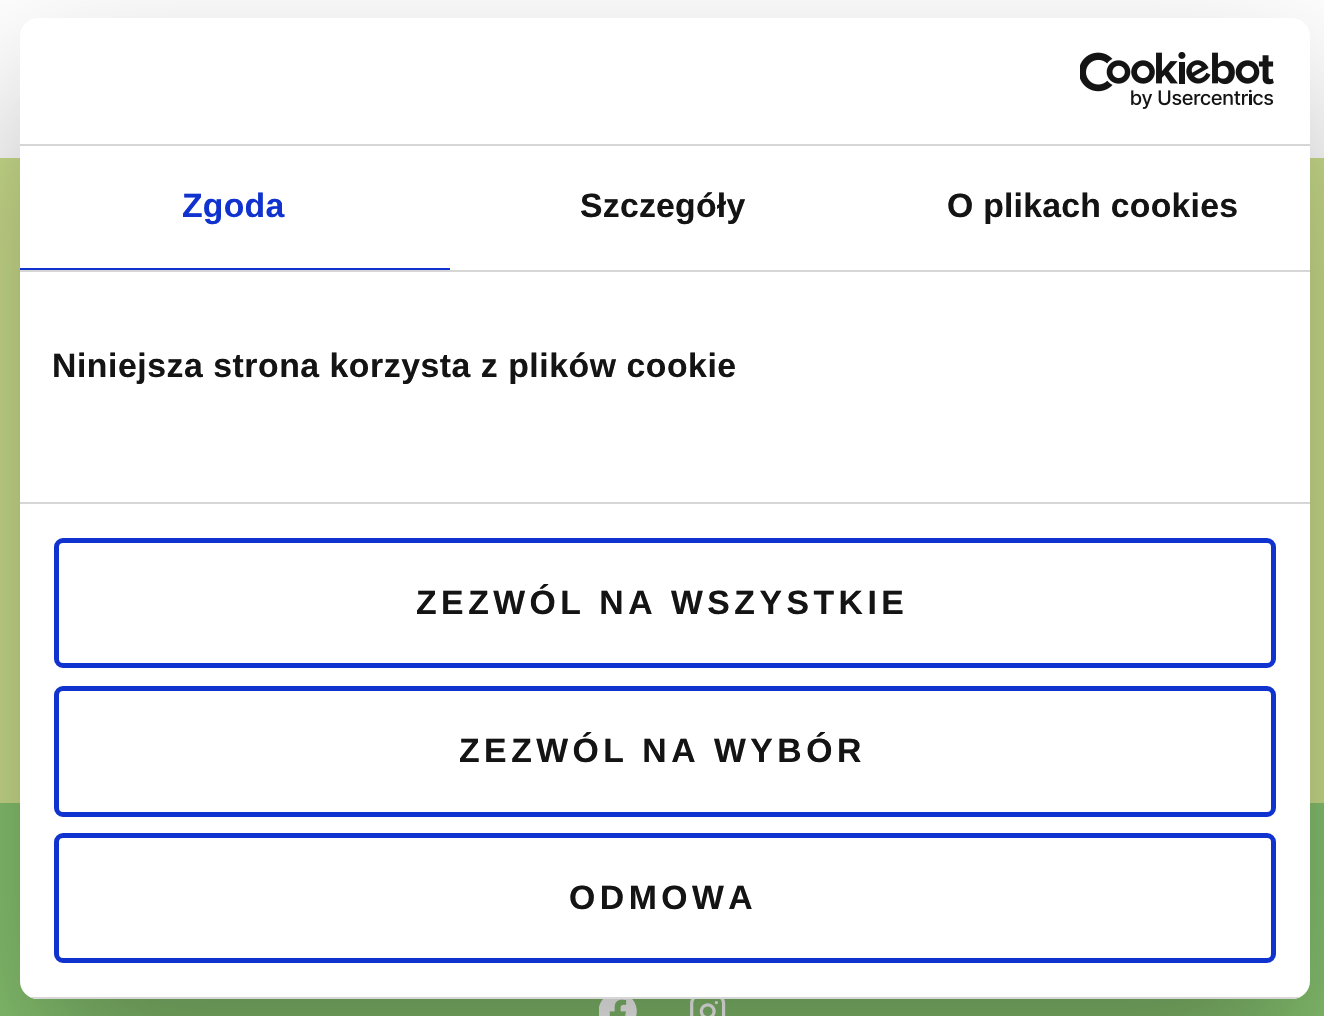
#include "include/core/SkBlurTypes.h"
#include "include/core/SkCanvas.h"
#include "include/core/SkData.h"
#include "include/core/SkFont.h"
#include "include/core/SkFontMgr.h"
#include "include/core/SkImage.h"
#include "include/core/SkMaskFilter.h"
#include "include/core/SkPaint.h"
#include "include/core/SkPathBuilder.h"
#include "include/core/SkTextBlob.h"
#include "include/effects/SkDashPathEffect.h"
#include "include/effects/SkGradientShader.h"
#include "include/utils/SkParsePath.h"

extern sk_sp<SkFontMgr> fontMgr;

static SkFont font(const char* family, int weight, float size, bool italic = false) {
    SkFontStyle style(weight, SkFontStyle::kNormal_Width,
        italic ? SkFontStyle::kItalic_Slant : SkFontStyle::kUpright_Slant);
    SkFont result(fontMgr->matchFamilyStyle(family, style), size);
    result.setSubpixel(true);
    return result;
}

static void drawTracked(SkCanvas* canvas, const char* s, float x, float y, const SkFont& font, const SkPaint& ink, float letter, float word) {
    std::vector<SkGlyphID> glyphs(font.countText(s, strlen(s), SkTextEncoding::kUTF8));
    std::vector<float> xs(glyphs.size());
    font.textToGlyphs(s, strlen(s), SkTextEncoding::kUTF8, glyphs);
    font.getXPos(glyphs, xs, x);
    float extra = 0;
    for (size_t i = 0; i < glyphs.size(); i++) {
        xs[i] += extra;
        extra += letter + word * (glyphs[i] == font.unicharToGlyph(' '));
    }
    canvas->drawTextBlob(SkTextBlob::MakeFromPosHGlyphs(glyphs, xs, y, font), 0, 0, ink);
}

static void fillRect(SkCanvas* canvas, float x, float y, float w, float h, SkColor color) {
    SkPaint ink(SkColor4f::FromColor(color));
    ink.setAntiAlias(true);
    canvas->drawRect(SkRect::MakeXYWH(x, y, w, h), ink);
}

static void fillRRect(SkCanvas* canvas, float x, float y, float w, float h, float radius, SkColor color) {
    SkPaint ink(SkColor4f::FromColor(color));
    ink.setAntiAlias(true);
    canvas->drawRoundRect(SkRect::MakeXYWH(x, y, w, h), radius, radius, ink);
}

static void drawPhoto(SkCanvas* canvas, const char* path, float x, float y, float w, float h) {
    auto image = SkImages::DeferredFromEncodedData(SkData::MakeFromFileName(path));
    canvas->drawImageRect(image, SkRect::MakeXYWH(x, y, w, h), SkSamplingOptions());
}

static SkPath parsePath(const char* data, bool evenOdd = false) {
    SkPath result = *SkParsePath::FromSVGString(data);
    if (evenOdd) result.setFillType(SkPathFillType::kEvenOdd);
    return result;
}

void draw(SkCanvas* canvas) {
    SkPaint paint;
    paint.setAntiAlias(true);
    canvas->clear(0xFFC9DC8B);
    fillRect(canvas, 0, 0, 1324, 158, 0xFFFFFFFF);
    fillRect(canvas, 0, 803, 1324, 213, 0xFF86C16F);
    drawPhoto(canvas, "assets/img1.png", 599, 999, 38, 17);
    drawPhoto(canvas, "assets/img2.png", 690, 999, 36, 17);
    paint.setColor(0x4D000000);
    paint.setMaskFilter(SkMaskFilter::MakeBlur(kNormal_SkBlurStyle, 76.5f));
    canvas->drawRoundRect(SkRect::MakeXYWH(20, 90, 1290, 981), 18, 18, paint);
    paint.setMaskFilter(nullptr);
    fillRRect(canvas, 20, 18, 1290, 981, 18, 0xFFFFFFFF);
    fillRect(canvas, 20, 144, 1290, 2, 0xFFD6D6D6);
    drawPhoto(canvas, "assets/img3.png", 1080, 52, 194, 57);
    fillRect(canvas, 20, 270, 1290, 2, 0xFFD6D6D6);
    fillRect(canvas, 20, 268, 430, 2, 0xFF1032CF);
    SkFont font1 = font("Liberation Sans", 700, 33.75f);
    paint.setColor(0xFF1032CF);
    drawTracked(canvas, "Zgoda", 182, 217, font1, paint, 0.25f, 0);
    paint.setColor(0xFF141414);
    drawTracked(canvas, "Szczegóły", 580, 217, font1, paint, 0.25f, 0);
    drawTracked(canvas, "O plikach cookies", 947, 217, font1, paint, 0.25f, 0);
    fillRect(canvas, 20, 502, 1290, 2, 0xFFD6D6D6);
    drawTracked(canvas, "Niniejsza strona korzysta z plików cookie", 52, 377, font1, paint, 0.55f, 0);
    canvas->save();
    canvas->clipPath(parsePath("M38 18H1292C1302 18 1310 26 1310 36V981C1310 991 1302 999 1292 999H38C28 999 20 991 20 981V36C20 26 28 18 38 18Z"), true);
    fillRect(canvas, 30, 997, 1270, 2, 0xFFD6D6D6);
    canvas->restore();
    paint.setStroke(true);
    paint.setStrokeWidth(5);
    paint.setColor(0xFF1032CF);
    canvas->drawRoundRect(SkRect::MakeXYWH(56.5f, 540.5f, 1217, 125), 6.5f, 6.5f, paint);
    paint.setStroke(false);
    paint.setColor(0xFF141414);
    drawTracked(canvas, "ZEZWÓL NA WSZYSTKIE", 416, 614, font1, paint, 4.5f, 0);
    paint.setStroke(true);
    paint.setColor(0xFF1032CF);
    canvas->drawRoundRect(SkRect::MakeXYWH(56.5f, 688.5f, 1217, 126), 6.5f, 6.5f, paint);
    paint.setStroke(false);
    paint.setColor(0xFF141414);
    drawTracked(canvas, "ZEZWÓL NA WYBÓR", 459, 762, font1, paint, 4.5f, 0);
    paint.setStroke(true);
    paint.setColor(0xFF1032CF);
    canvas->drawRoundRect(SkRect::MakeXYWH(56.5f, 835.5f, 1217, 125), 6.5f, 6.5f, paint);
    paint.setStroke(false);
    paint.setColor(0xFF141414);
    drawTracked(canvas, "ODMOWA", 569, 909, font1, paint, 4.5f, 0);
}
